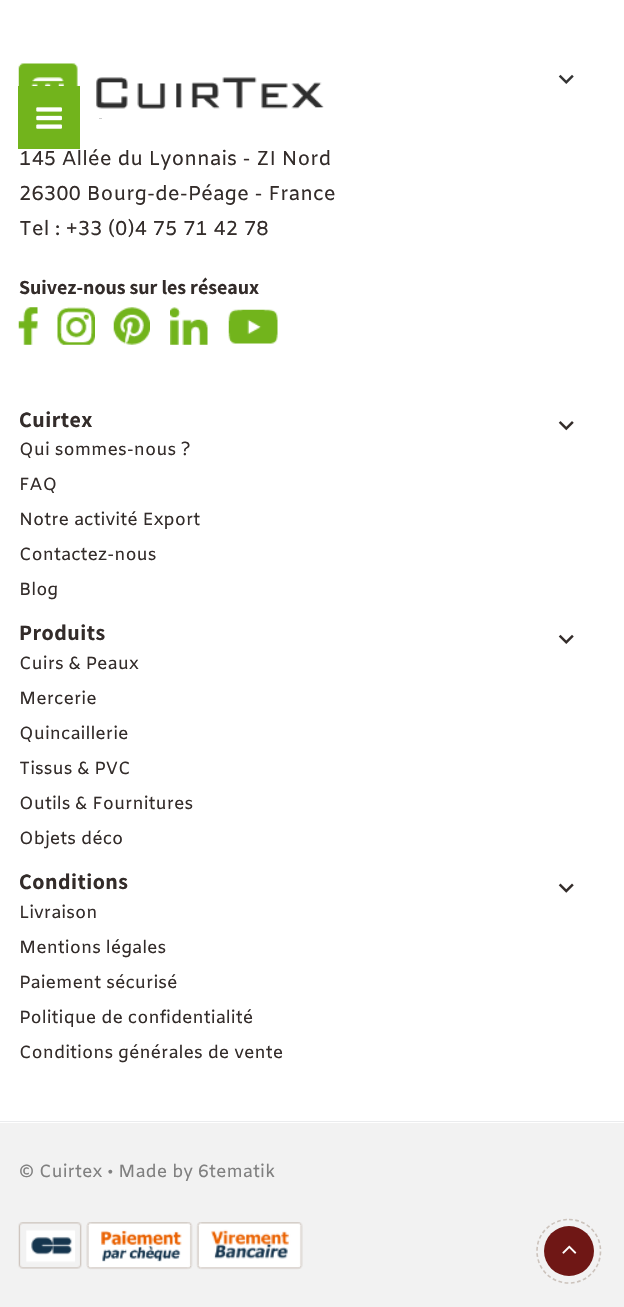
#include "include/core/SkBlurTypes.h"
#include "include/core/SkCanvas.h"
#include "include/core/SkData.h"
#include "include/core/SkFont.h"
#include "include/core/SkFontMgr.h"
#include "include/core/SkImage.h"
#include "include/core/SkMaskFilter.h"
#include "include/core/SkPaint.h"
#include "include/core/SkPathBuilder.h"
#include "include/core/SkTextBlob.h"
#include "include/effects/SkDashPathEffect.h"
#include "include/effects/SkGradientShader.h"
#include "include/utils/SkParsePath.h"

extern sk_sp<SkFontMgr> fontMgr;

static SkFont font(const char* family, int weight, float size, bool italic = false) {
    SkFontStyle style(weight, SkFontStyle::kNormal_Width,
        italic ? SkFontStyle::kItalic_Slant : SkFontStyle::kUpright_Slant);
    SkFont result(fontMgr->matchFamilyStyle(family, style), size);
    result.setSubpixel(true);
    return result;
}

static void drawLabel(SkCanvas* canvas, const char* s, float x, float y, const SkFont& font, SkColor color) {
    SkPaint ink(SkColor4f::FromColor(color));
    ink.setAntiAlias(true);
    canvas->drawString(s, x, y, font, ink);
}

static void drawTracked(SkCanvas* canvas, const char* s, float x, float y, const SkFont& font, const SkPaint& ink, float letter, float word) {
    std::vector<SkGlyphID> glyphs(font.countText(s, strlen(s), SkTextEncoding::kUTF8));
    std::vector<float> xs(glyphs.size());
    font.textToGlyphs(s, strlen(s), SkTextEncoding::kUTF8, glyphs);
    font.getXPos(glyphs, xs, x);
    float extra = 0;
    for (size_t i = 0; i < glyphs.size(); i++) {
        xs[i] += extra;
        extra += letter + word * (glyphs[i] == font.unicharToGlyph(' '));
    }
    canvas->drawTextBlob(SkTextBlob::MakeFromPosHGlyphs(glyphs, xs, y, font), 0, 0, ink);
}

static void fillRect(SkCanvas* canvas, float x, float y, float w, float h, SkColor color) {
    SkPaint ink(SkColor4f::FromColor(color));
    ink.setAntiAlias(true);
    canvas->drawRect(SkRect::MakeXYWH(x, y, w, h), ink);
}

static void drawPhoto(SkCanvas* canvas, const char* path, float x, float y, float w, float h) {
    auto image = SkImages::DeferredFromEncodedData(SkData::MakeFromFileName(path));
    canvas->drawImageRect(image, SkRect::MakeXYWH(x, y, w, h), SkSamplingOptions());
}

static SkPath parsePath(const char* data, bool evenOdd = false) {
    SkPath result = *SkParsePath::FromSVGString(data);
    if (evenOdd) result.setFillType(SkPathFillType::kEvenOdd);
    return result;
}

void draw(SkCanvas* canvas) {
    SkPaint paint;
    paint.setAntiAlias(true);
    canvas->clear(0xFFFFFFFF);
    drawPhoto(canvas, "assets/img2.png", 18, 63, 306, 46);
    fillRect(canvas, 18, 86, 62, 63, 0xFF72B41C);
    drawPhoto(canvas, "assets/img1.png", 36, 107, 26, 22);
    fillRect(canvas, 99, 118, 3, 1, 0xFFCECECE);
    fillRect(canvas, 0, 1121, 624, 1, 0xFFEBECEE);
    drawPhoto(canvas, "assets/img3.png", 558, 74, 16, 10);
    SkFont font1 = font("Amiko", 400, 20);
    drawLabel(canvas, "145 Allée du Lyonnais - ZI Nord", 19, 165, font1, 0xFF332C2A);
    drawLabel(canvas, "26300 Bourg-de-Péage - France", 19, 200, font1, 0xFF332C2A);
    drawLabel(canvas, "Tel : +33 (0)4 75 71 42 78", 19, 235, font1, 0xFF332C2A);
    SkFont font2 = font("Assistant", 700, 20);
    drawLabel(canvas, "Suivez-nous sur les réseaux", 19, 294, font2, 0xFF332C2A);
    drawPhoto(canvas, "assets/img4.png", 18, 307, 20, 38);
    drawPhoto(canvas, "assets/img5.png", 57, 307, 38, 38);
    drawPhoto(canvas, "assets/img6.png", 113, 307, 37, 38);
    drawPhoto(canvas, "assets/img7.png", 170, 307, 38, 38);
    drawPhoto(canvas, "assets/img8.png", 228, 309, 50, 35);
    SkFont font3 = font("Assistant", 700, 22);
    paint.setColor(0xFF332C2A);
    drawTracked(canvas, "Cuirtex", 19, 427, font3, paint, 0.5f, 0);
    drawPhoto(canvas, "assets/img9.png", 558, 421, 16, 10);
    SkFont font4 = font("Amiko", 400, 17.5f);
    drawLabel(canvas, "Qui sommes-nous ?", 19, 455, font4, 0xFF332C2A);
    drawLabel(canvas, "FAQ", 19, 490, font4, 0xFF332C2A);
    drawLabel(canvas, "Notre activité Export", 19, 525, font4, 0xFF332C2A);
    drawLabel(canvas, "Contactez-nous", 19, 560, font4, 0xFF332C2A);
    drawLabel(canvas, "Blog", 19, 595, font4, 0xFF332C2A);
    drawTracked(canvas, "Produits", 19, 640, font3, paint, 0.5f, 0);
    drawPhoto(canvas, "assets/img10.png", 558, 634, 16, 10);
    drawLabel(canvas, "Cuirs & Peaux", 19, 669, font4, 0xFF332C2A);
    drawLabel(canvas, "Mercerie", 19, 704, font4, 0xFF332C2A);
    drawLabel(canvas, "Quincaillerie", 19, 739, font4, 0xFF332C2A);
    drawLabel(canvas, "Tissus & PVC", 19, 774, font4, 0xFF332C2A);
    drawLabel(canvas, "Outils & Fournitures", 19, 809, font4, 0xFF332C2A);
    drawLabel(canvas, "Objets déco", 19, 844, font4, 0xFF332C2A);
    drawTracked(canvas, "Conditions", 19, 889, font3, paint, 0.5f, 0);
    drawPhoto(canvas, "assets/img11.png", 558, 883, 16, 10);
    drawLabel(canvas, "Livraison", 19, 918, font4, 0xFF332C2A);
    drawLabel(canvas, "Mentions légales", 19, 953, font4, 0xFF332C2A);
    drawLabel(canvas, "Paiement sécurisé", 19, 988, font4, 0xFF332C2A);
    drawLabel(canvas, "Politique de confidentialité", 19, 1023, font4, 0xFF332C2A);
    drawLabel(canvas, "Conditions générales de vente", 19, 1058, font4, 0xFF332C2A);
    fillRect(canvas, 0, 1123, 624, 184, 0xFFF2F2F2);
    drawLabel(canvas, "© Cuirtex • Made by 6tematik", 19, 1177, font4, 0xFF808080);
    drawPhoto(canvas, "assets/img12.png", 18, 1222, 285, 48);
    paint.setColor(0xFF6F1715);
    canvas->drawCircle(569, 1251, 25, paint);
    paint.setStroke(true);
    paint.setStrokeWidth(1.6f);
    paint.setColor(0xFFCCC3BC);
    paint.setPathEffect(SkDashPathEffect::Make({{3.75f, 2.5f}}, 0));
    canvas->drawPath(parsePath("M569 1219.5C586.5 1219.5 600.5 1233.5 600.5 1251C600.5 1269 586.5 1283 569 1283C551 1283 537 1269 537 1251C537 1233.5 551 1219.5 569 1219.5Z"), paint);
    paint.setPathEffect(nullptr);
    drawPhoto(canvas, "assets/img13.png", 562, 1245, 15, 9);
}
